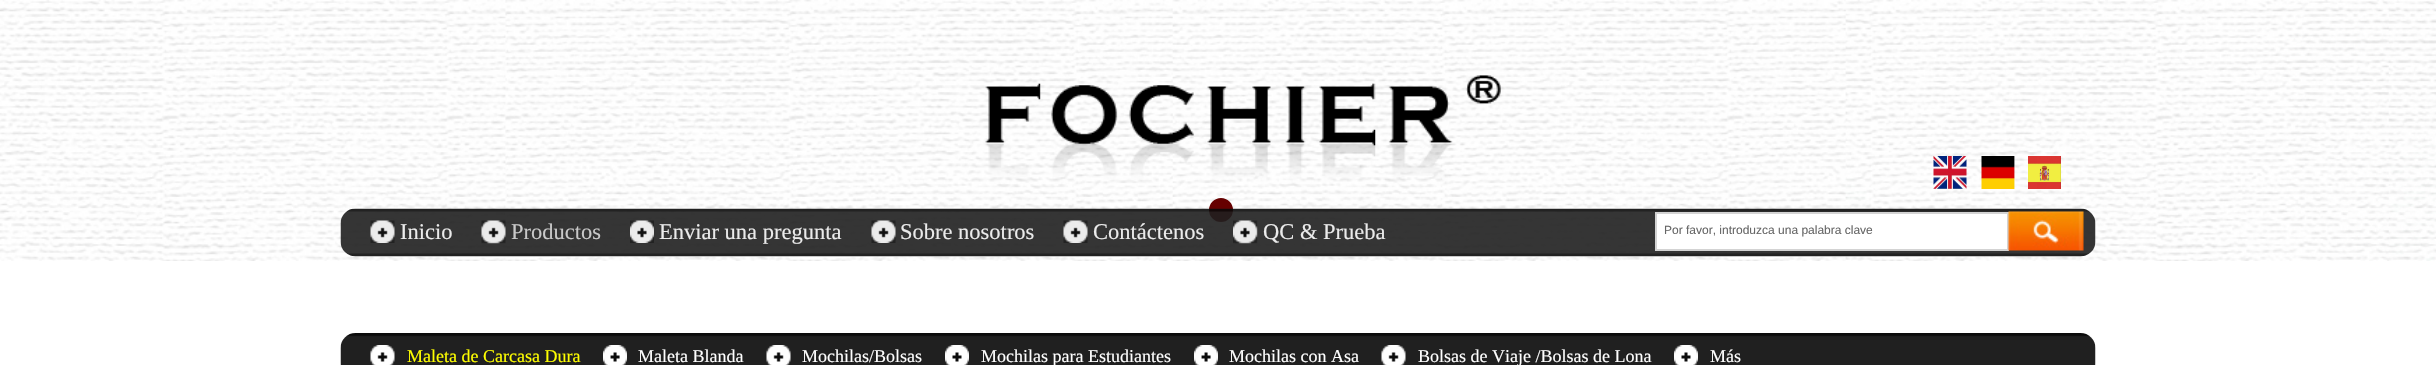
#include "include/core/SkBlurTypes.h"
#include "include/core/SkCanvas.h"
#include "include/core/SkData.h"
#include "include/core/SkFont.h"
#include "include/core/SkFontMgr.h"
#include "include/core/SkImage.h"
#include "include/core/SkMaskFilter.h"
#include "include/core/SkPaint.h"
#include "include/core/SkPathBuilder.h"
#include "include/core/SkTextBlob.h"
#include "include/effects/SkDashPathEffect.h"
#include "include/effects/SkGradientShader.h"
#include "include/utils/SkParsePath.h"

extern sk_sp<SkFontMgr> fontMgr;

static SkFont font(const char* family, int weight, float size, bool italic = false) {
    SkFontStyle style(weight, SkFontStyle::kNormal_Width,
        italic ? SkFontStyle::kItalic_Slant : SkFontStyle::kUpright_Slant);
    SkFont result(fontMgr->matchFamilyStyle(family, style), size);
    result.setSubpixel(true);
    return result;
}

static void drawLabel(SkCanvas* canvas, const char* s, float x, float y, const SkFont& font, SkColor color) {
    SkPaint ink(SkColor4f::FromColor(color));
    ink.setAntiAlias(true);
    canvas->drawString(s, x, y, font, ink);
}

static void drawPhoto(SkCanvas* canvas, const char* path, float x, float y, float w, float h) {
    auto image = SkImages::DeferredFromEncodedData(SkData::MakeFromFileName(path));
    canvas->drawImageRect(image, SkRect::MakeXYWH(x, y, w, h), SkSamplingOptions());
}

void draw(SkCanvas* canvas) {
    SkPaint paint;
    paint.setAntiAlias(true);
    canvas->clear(0xFFFFFFFF);
    drawPhoto(canvas, "assets/img1.png", 0, 0, 2436, 261);
    paint.setColor(0xFF660000);
    canvas->drawCircle(1221, 210, 10.5f, paint);
    paint.setStroke(true);
    paint.setStrokeWidth(3);
    canvas->drawCircle(1221, 210, 10.5f, paint);
    drawPhoto(canvas, "assets/img2.png", 1933, 156, 34, 33);
    drawPhoto(canvas, "assets/img3.png", 1981, 156, 34, 33);
    drawPhoto(canvas, "assets/img4.png", 2028, 156, 33, 33);
    drawPhoto(canvas, "assets/img5.png", 340, 208, 1756, 49);
    drawPhoto(canvas, "assets/img6.png", 370, 220, 25, 23);
    SkFont font1 = font("Liberation Serif", 400, 22.5f);
    drawLabel(canvas, "Inicio", 400, 239, font1, 0xFFEBEBEB);
    drawPhoto(canvas, "assets/img7.png", 481, 220, 25, 24);
    drawLabel(canvas, "Productos", 511, 239, font1, 0xFFC9C9C9);
    drawPhoto(canvas, "assets/img8.png", 630, 220, 24, 23);
    drawLabel(canvas, "Enviar una pregunta", 659, 239, font1, 0xFFEBEBEB);
    drawPhoto(canvas, "assets/img9.png", 871, 220, 25, 23);
    drawLabel(canvas, "Sobre nosotros", 900, 239, font1, 0xFFEBEBEB);
    drawPhoto(canvas, "assets/img10.png", 1063, 220, 25, 23);
    drawLabel(canvas, "Contáctenos", 1093, 239, font1, 0xFFEBEBEB);
    drawPhoto(canvas, "assets/img11.png", 1233, 220, 25, 24);
    drawLabel(canvas, "QC & Prueba", 1263, 239, font1, 0xFFEBEBEB);
    paint.setStroke(false);
    paint.setColor(0xFFFFFFFF);
    canvas->drawRect(SkRect::MakeXYWH(1656, 213, 352, 37), paint);
    paint.setStroke(true);
    paint.setStrokeWidth(2);
    paint.setColor(0xFFD3D3D3);
    canvas->drawRect(SkRect::MakeXYWH(1656, 213, 352, 37), paint);
    SkFont font2 = font("Liberation Sans", 400, 12);
    drawLabel(canvas, "Por favor, introduzca una palabra clave", 1664, 234, font2, 0xFF666666);
    drawPhoto(canvas, "assets/img12.png", 2008, 211, 76, 40);
    drawPhoto(canvas, "assets/img13.png", 340, 333, 1756, 32);
    drawPhoto(canvas, "assets/img14.png", 370, 345, 25, 20);
    SkFont font3 = font("Liberation Serif", 400, 18);
    drawLabel(canvas, "Maleta de Carcasa Dura", 407, 362, font3, 0xFFFFFF00);
    drawPhoto(canvas, "assets/img15.png", 603, 345, 24, 20);
    drawLabel(canvas, "Maleta Blanda", 638, 362, font3, 0xFFFFFFFF);
    drawPhoto(canvas, "assets/img16.png", 766, 345, 25, 20);
    drawLabel(canvas, "Mochilas/Bolsas", 802, 362, font3, 0xFFFFFFFF);
    drawPhoto(canvas, "assets/img17.png", 945, 345, 24, 20);
    drawLabel(canvas, "Mochilas para Estudiantes", 981, 362, font3, 0xFFFFFFFF);
    drawPhoto(canvas, "assets/img15.png", 1194, 345, 24, 20);
    drawLabel(canvas, "Mochilas con Asa", 1229, 362, font3, 0xFFFFFFFF);
    drawPhoto(canvas, "assets/img14.png", 1381, 345, 25, 20);
    drawLabel(canvas, "Bolsas de Viaje /Bolsas de Lona", 1418, 362, font3, 0xFFFFFFFF);
    drawPhoto(canvas, "assets/img17.png", 1674, 345, 24, 20);
    drawLabel(canvas, "Más", 1710, 362, font3, 0xFFFFFFFF);
}
